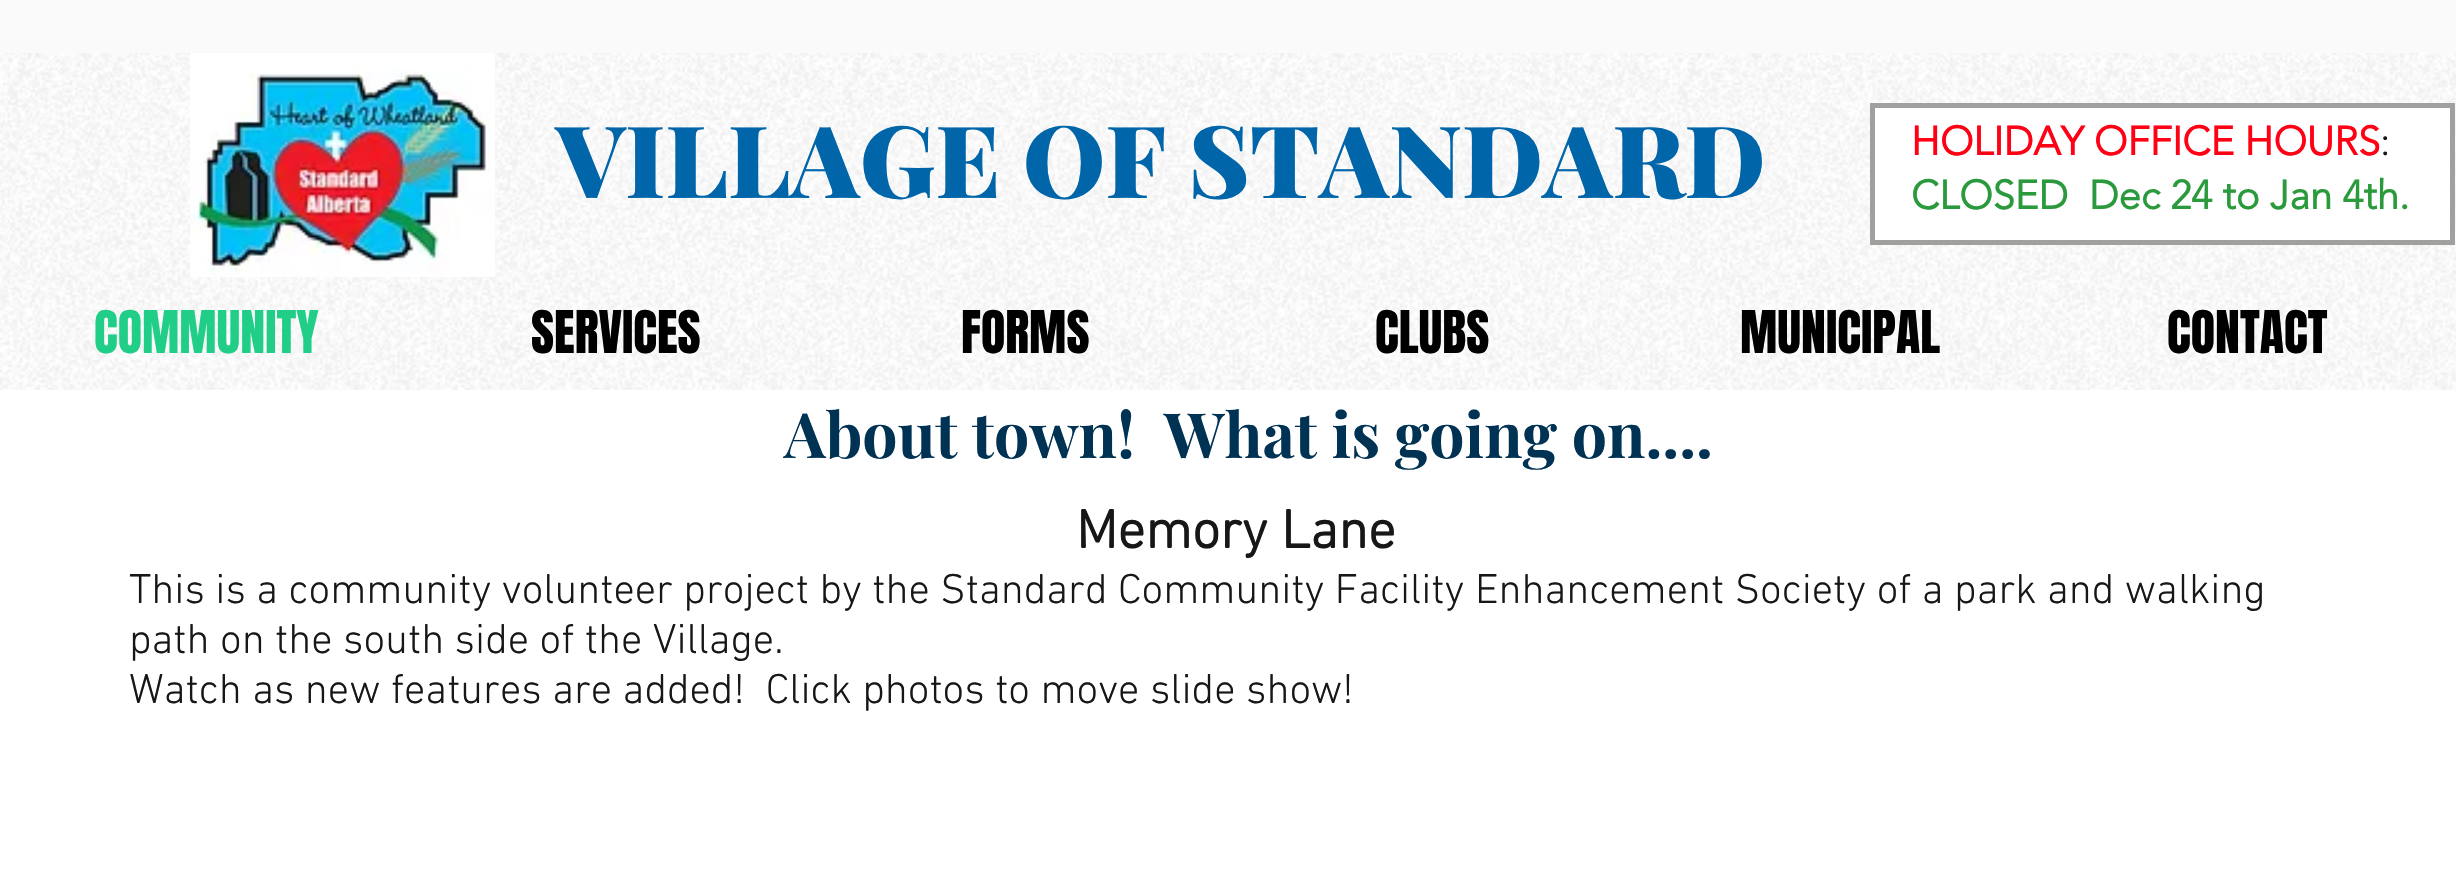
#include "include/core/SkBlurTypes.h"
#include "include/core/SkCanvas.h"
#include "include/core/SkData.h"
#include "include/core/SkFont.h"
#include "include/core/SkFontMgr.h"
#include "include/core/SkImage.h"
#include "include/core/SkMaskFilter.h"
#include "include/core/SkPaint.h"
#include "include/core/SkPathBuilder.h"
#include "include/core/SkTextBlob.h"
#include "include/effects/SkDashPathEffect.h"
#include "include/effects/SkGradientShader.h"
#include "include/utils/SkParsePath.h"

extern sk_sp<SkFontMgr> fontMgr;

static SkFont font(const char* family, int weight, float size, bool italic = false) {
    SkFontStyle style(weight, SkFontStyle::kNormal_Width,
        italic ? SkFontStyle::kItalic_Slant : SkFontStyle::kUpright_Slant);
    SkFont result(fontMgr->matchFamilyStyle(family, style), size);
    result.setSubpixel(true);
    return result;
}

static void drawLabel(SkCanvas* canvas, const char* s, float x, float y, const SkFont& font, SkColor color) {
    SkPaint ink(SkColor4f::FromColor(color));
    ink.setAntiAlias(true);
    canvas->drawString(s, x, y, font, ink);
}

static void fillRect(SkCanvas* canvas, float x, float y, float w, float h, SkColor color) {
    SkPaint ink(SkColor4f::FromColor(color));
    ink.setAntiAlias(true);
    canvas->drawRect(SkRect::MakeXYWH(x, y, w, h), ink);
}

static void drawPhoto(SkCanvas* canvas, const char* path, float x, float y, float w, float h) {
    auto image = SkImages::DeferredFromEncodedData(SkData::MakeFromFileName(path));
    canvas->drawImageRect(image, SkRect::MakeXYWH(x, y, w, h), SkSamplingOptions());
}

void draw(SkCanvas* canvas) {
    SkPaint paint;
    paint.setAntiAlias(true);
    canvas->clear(0xFFFFFFFF);
    drawPhoto(canvas, "assets/img1.png", 0, 53, 2456, 337);
    fillRect(canvas, 0, 0, 2456, 53, 0xFFFAFAFA);
    drawPhoto(canvas, "assets/img2.png", 190, 53, 305, 224);
    SkFont font1 = font("Playfair Display", 900, 100);
    drawLabel(canvas, "VILLAGE OF STANDARD", 556, 198, font1, 0xFF0065A9);
    paint.setColor(0xFFFFFFFF);
    canvas->drawRect(SkRect::MakeXYWH(1872.5f, 105.5f, 580, 137), paint);
    paint.setStroke(true);
    paint.setStrokeWidth(5);
    paint.setColor(0xFFA0A09F);
    canvas->drawRect(SkRect::MakeXYWH(1872.5f, 105.5f, 580, 137), paint);
    SkFont font2 = font("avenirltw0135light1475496", 700, 40);
    drawLabel(canvas, "HOLIDAY OFFICE HOURS", 1911, 155, font2, 0xFFFF0014);
    SkFont font3 = font("avenirltw0135light1475496", 300, 40);
    drawLabel(canvas, ":", 2380, 155, font3, 0xFF171717);
    drawLabel(canvas, "CLOSED  Dec 24 to Jan 4th.", 1911, 209, font2, 0xFF2B9A3C);
    SkFont font4 = font("Anton", 400, 50);
    drawLabel(canvas, "COMMUNITY", 94, 353, font4, 0xFF20CE88);
    drawLabel(canvas, "SERVICES", 531, 353, font4, 0xFF000000);
    drawLabel(canvas, "FORMS", 961, 353, font4, 0xFF000000);
    drawLabel(canvas, "CLUBS", 1375, 353, font4, 0xFF000000);
    drawLabel(canvas, "MUNICIPAL", 1740, 353, font4, 0xFF000000);
    drawLabel(canvas, "CONTACT", 2167, 353, font4, 0xFF000000);
    SkFont font5 = font("Playfair Display", 700, 62.5f);
    drawLabel(canvas, "About town!  What is going on....", 784, 458, font5, 0xFF003254);
    SkFont font6 = font("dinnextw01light", 700, 55);
    drawLabel(canvas, "Memory Lane", 1076, 548, font6, 0xFF171717);
    SkFont font7 = font("dinnextw01light", 300, 42.5f);
    drawLabel(canvas, "This is a community volunteer project by the Standard Community Facility Enhancement Society of a park and walking", 129, 603, font7, 0xFF171717);
    drawLabel(canvas, "path on the south side of the Village.", 129, 653, font7, 0xFF171717);
    drawLabel(canvas, "Watch as new features are added!  Click photos to move slide show!", 129, 703, font7, 0xFF171717);
}
